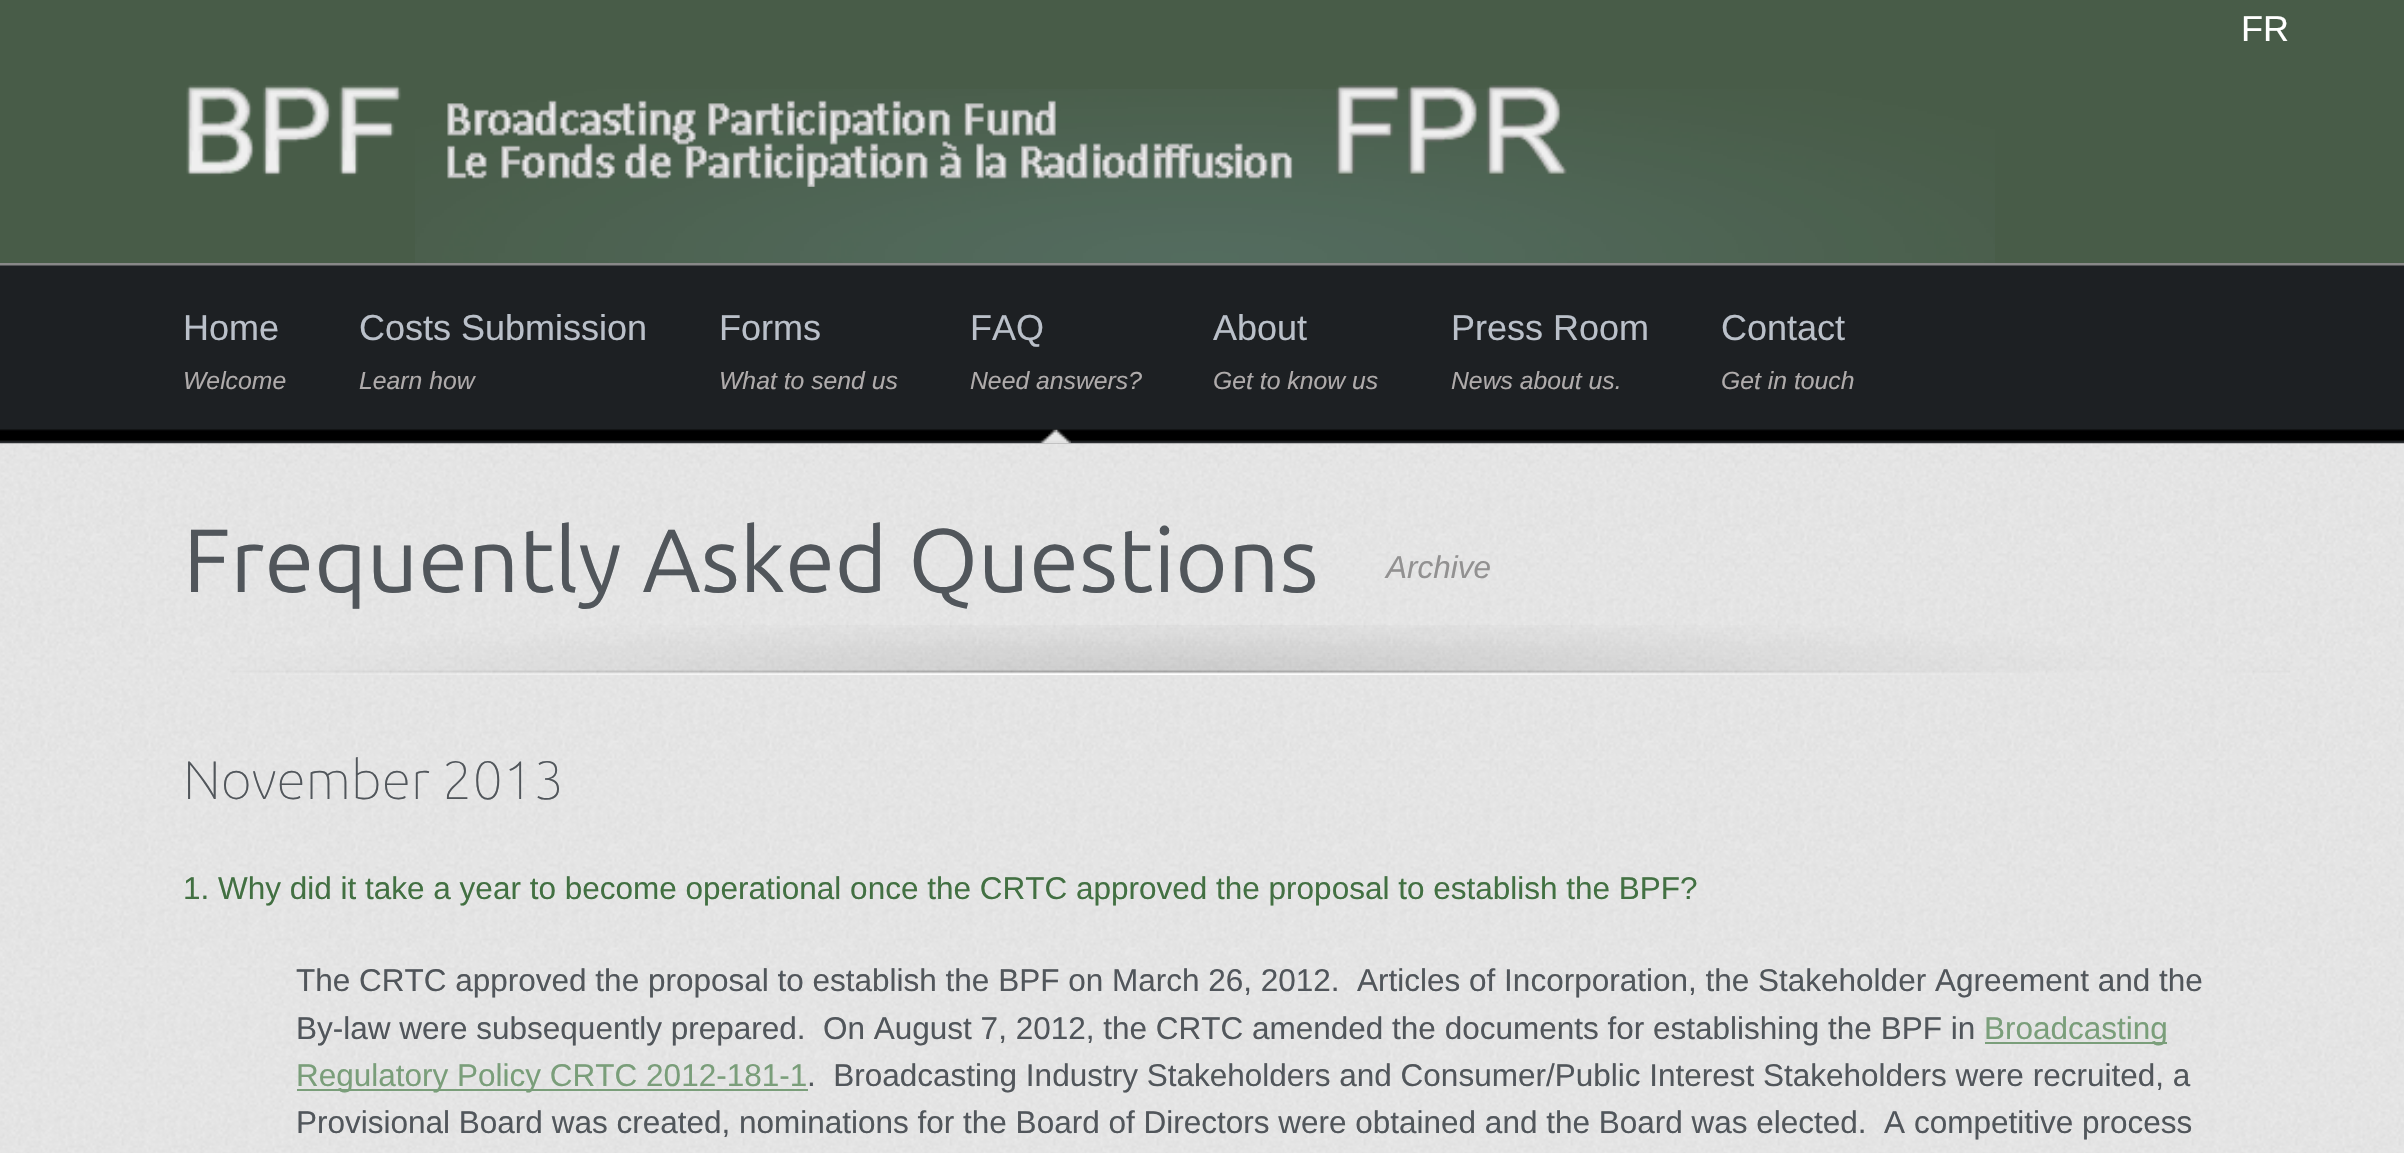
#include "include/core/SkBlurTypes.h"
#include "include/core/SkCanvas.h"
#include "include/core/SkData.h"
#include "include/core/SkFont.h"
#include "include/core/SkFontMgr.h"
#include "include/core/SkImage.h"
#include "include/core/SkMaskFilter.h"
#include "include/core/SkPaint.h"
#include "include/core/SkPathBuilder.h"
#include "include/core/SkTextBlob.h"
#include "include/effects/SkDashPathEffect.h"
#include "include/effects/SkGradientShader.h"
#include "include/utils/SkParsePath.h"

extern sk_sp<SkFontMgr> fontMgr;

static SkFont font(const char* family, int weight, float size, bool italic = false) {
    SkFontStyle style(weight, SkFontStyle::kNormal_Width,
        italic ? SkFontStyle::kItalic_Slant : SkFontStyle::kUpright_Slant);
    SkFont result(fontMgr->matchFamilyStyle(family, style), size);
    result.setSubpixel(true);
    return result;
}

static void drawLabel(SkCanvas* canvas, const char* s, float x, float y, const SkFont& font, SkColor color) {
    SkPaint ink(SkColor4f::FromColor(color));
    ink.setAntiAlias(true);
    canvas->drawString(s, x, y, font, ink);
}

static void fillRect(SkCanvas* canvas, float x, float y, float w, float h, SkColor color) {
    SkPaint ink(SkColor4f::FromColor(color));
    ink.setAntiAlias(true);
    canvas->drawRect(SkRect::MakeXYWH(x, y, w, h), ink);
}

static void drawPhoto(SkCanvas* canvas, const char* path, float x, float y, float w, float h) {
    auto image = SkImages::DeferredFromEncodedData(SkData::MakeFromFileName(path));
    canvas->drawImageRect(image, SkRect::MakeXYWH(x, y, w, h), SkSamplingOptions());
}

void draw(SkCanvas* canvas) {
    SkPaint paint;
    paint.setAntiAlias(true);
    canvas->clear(0xFFFFFFFF);
    drawPhoto(canvas, "assets/img1.png", 0, 443, 2404, 710);
    fillRect(canvas, 0, 0, 2404, 263, 0xFF485C48);
    drawPhoto(canvas, "assets/img2.png", 415, 89, 1580, 174);
    SkFont font1 = font("Liberation Sans", 400, 36);
    drawLabel(canvas, "FR", 2241, 41, font1, 0xFFFFFFFF);
    drawPhoto(canvas, "assets/img3.png", 186, 85, 1381, 102);
    fillRect(canvas, 0, 263, 2404, 3, 0xFF888888);
    drawPhoto(canvas, "assets/img4.png", 0, 265, 2404, 179);
    drawLabel(canvas, "Home", 183, 340, font1, 0xFFBAC0C9);
    SkFont font2 = font("Liberation Sans", 400, 24.75f, true);
    drawLabel(canvas, "Welcome", 183, 389, font2, 0xFFAFABAB);
    drawLabel(canvas, "Costs Submission", 359, 340, font1, 0xFFBAC0C9);
    drawLabel(canvas, "Learn how", 359, 389, font2, 0xFFAFABAB);
    drawLabel(canvas, "Forms", 719, 340, font1, 0xFFBAC0C9);
    drawLabel(canvas, "What to send us", 719, 389, font2, 0xFFAFABAB);
    drawPhoto(canvas, "assets/img5.png", 1039, 429, 32, 15);
    drawLabel(canvas, "FAQ", 970, 340, font1, 0xFFBAC0C9);
    drawLabel(canvas, "Need answers?", 970, 389, font2, 0xFFAFABAB);
    drawLabel(canvas, "About", 1213, 340, font1, 0xFFBAC0C9);
    drawLabel(canvas, "Get to know us", 1213, 389, font2, 0xFFAFABAB);
    drawLabel(canvas, "Press Room", 1451, 340, font1, 0xFFBAC0C9);
    drawLabel(canvas, "News about us.", 1451, 389, font2, 0xFFAFABAB);
    drawLabel(canvas, "Contact", 1721, 340, font1, 0xFFBAC0C9);
    drawLabel(canvas, "Get in touch", 1721, 389, font2, 0xFFAFABAB);
    drawPhoto(canvas, "assets/img6.png", 230, 625, 2060, 50);
    SkFont font3 = font("Ubuntu", 400, 90);
    drawLabel(canvas, "Frequently Asked Questions", 183, 592, font3, 0xFF51565B);
    SkFont font4 = font("Liberation Sans", 400, 31.5f, true);
    drawLabel(canvas, "Archive", 1386, 578, font4, 0xFF929191);
    SkFont font5 = font("Ubuntu", 100, 54);
    drawLabel(canvas, "November 2013", 183, 799, font5, 0xFF51565B);
    SkFont font6 = font("Liberation Sans", 400, 31.5f);
    drawLabel(canvas, "1. Why did it take a year to become operational once the CRTC approved the proposal to establish the BPF?", 183, 899, font6, 0xFF427042);
    drawLabel(canvas, "The CRTC approved the proposal to establish the BPF on March 26, 2012.  Articles of Incorporation, the Stakeholder Agreement and the", 296, 991, font6, 0xFF51565B);
    drawLabel(canvas, "By-law were subsequently prepared.  On August 7, 2012, the CRTC amended the documents for establishing the BPF in", 296, 1039, font6, 0xFF51565B);
    fillRect(canvas, 1985, 1042, 182, 2, 0xFF7A9E7A);
    drawLabel(canvas, "Broadcasting", 1984, 1039, font6, 0xFF7A9E7A);
    fillRect(canvas, 297, 1089, 511, 2, 0xFF7A9E7A);
    drawLabel(canvas, "Regulatory Policy CRTC 2012-181-1", 296, 1086, font6, 0xFF7A9E7A);
    drawLabel(canvas, ".  Broadcasting Industry Stakeholders and Consumer/Public Interest Stakeholders were recruited, a", 807, 1086, font6, 0xFF51565B);
    drawLabel(canvas, "Provisional Board was created, nominations for the Board of Directors were obtained and the Board was elected.  A competitive process", 296, 1133, font6, 0xFF51565B);
}
